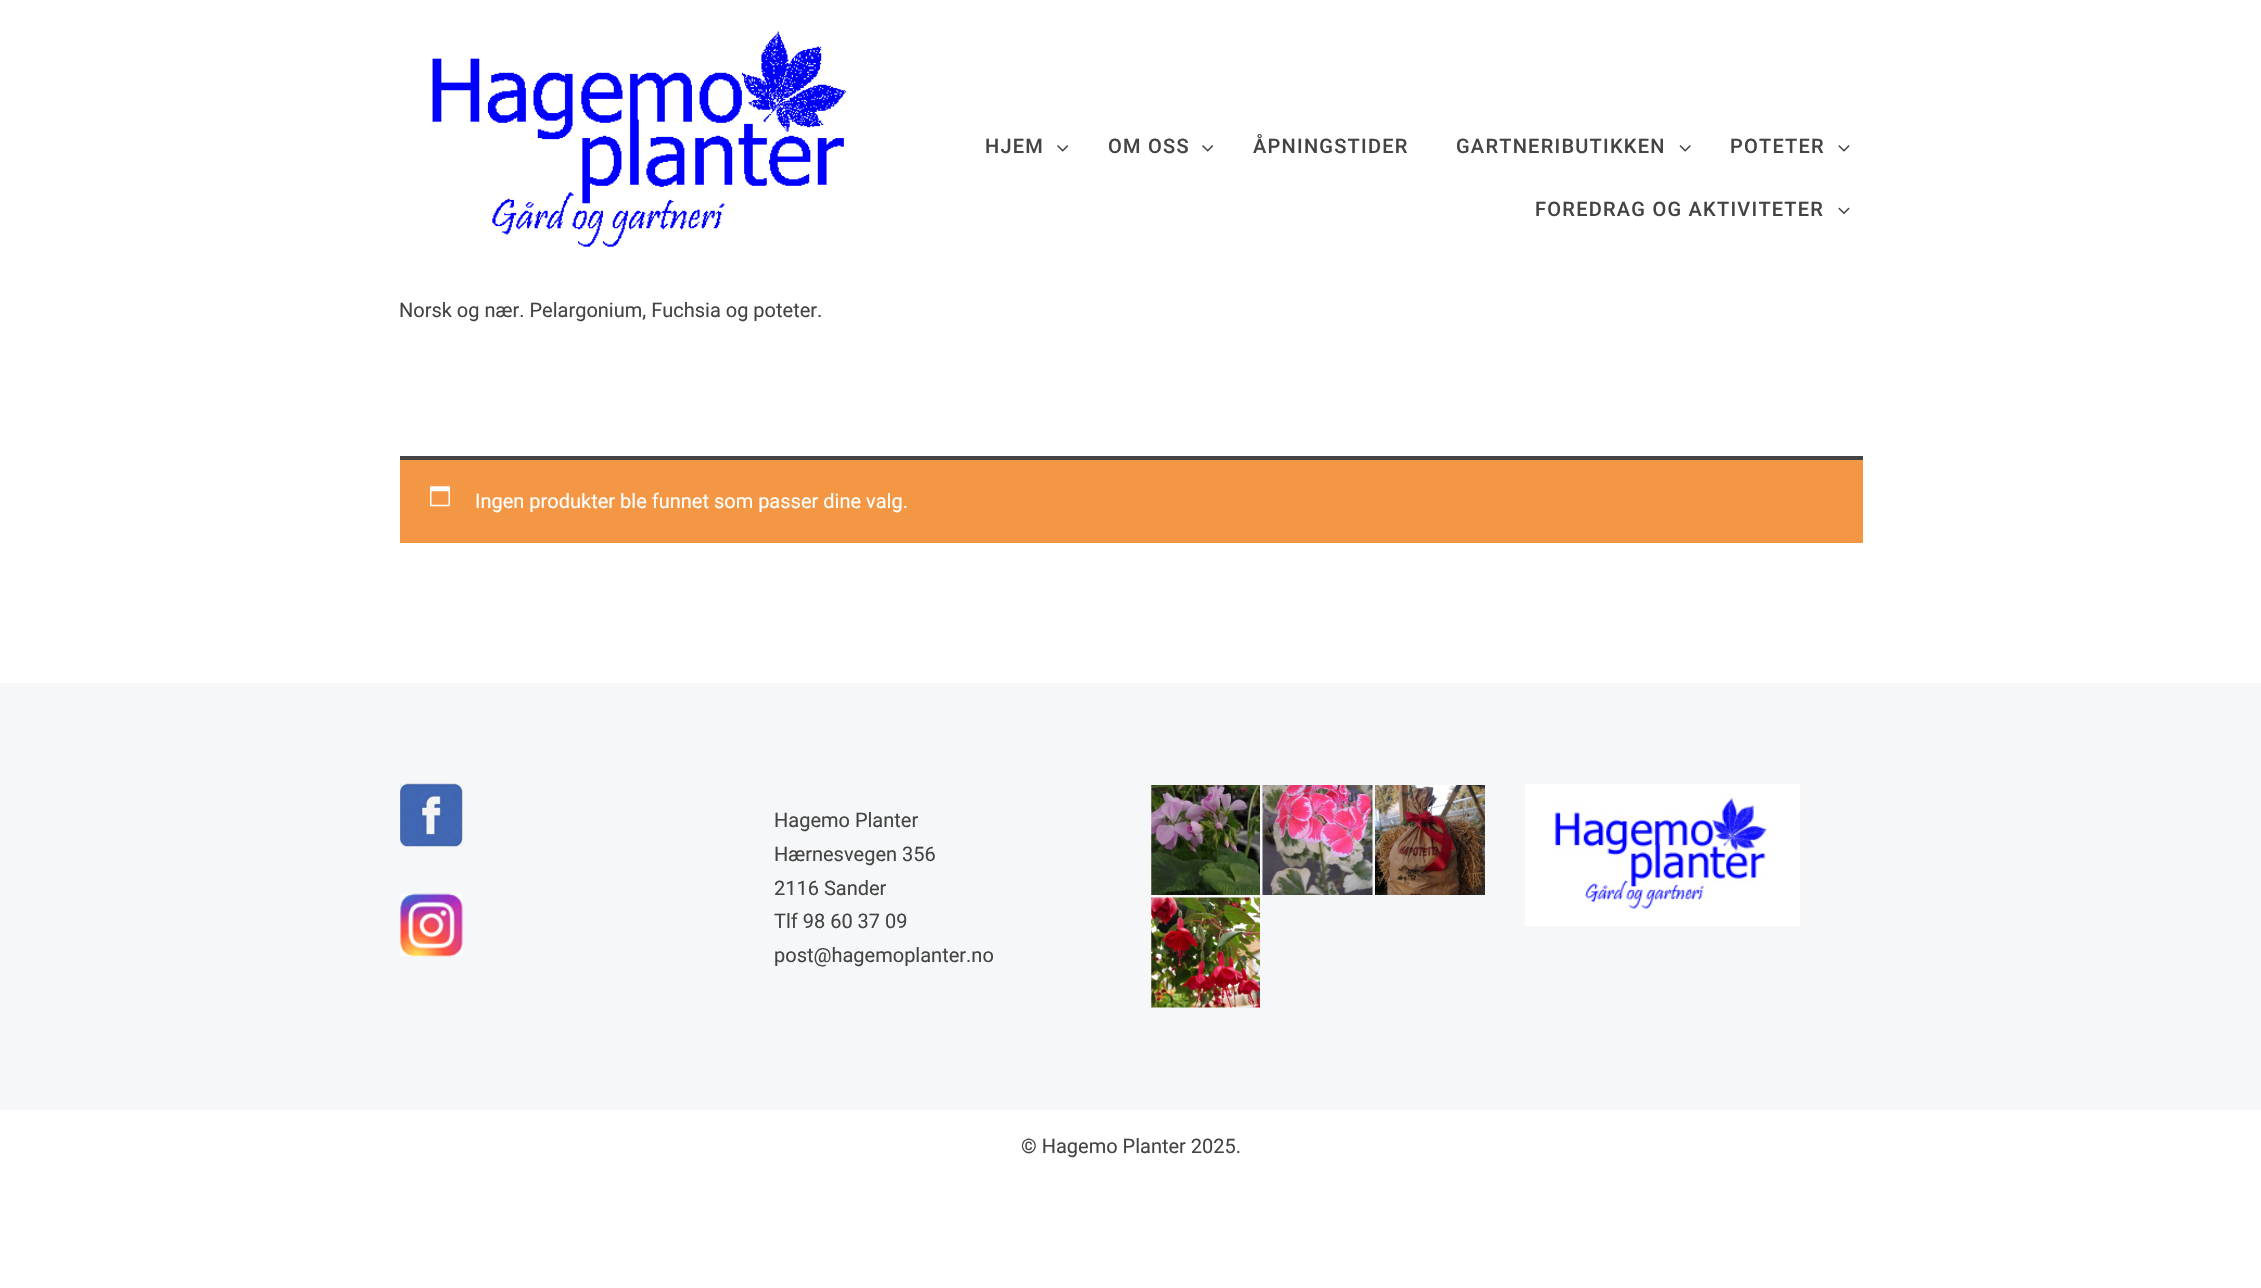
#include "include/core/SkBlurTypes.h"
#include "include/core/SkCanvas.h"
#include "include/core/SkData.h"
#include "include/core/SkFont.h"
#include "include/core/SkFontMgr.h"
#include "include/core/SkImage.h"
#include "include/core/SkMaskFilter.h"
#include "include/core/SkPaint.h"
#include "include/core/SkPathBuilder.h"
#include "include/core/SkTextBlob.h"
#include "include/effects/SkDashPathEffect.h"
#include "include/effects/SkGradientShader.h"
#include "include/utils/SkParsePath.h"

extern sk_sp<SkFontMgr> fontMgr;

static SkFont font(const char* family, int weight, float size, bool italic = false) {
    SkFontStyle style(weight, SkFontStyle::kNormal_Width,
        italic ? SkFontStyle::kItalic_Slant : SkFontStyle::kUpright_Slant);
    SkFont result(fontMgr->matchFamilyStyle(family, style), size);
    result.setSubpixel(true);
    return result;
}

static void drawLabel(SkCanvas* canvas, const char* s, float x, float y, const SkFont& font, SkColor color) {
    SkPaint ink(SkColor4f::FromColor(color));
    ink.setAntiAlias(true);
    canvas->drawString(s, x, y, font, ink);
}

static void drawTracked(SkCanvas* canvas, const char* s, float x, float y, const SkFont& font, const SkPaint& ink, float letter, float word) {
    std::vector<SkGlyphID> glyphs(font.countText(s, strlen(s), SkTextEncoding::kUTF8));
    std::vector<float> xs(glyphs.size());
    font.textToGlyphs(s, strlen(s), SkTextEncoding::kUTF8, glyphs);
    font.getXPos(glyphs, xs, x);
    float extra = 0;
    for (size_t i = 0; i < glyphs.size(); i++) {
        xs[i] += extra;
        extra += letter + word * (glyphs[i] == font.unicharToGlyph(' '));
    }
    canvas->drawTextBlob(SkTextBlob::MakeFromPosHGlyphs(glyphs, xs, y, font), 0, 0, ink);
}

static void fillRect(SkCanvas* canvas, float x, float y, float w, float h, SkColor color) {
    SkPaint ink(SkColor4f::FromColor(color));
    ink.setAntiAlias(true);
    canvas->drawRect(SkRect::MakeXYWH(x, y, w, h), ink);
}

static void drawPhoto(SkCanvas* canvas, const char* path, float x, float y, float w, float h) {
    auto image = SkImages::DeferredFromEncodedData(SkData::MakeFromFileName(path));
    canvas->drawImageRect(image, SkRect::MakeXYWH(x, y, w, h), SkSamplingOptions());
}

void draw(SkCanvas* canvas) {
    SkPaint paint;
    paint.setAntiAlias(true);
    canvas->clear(0xFFFFFFFF);
    SkFont font1 = font("Roboto", 500, 20);
    paint.setColor(0xFF444444);
    drawTracked(canvas, "HJEM", 985, 153, font1, paint, 1.25f, 0);
    drawPhoto(canvas, "assets/img1.png", 1057, 145, 12, 7);
    drawTracked(canvas, "OM OSS", 1108, 153, font1, paint, 1.25f, 0);
    drawPhoto(canvas, "assets/img1.png", 1202, 145, 12, 7);
    drawTracked(canvas, "ÅPNINGSTIDER", 1253, 153, font1, paint, 1.25f, 0);
    drawTracked(canvas, "GARTNERIBUTIKKEN", 1456, 153, font1, paint, 1.25f, 0);
    drawPhoto(canvas, "assets/img2.png", 1679, 145, 12, 7);
    drawTracked(canvas, "POTETER", 1730, 153, font1, paint, 1.25f, 0);
    drawPhoto(canvas, "assets/img3.png", 1838, 145, 12, 7);
    drawTracked(canvas, "FOREDRAG OG AKTIVITETER", 1535, 216, font1, paint, 1.25f, 0);
    drawPhoto(canvas, "assets/img4.png", 1838, 207, 12, 8);
    drawPhoto(canvas, "assets/img5.png", 432, 31, 415, 216);
    SkFont font2 = font("Roboto", 400, 20);
    drawLabel(canvas, "Norsk og nær. Pelargonium, Fuchsia og poteter.", 399, 317, font2, 0xFF444444);
    fillRect(canvas, 400, 460, 1463, 83, 0xFFF39745);
    fillRect(canvas, 400, 456, 1463, 4, 0xFF444444);
    drawPhoto(canvas, "assets/img6.png", 430, 486, 20, 21);
    drawLabel(canvas, "Ingen produkter ble funnet som passer dine valg.", 475, 508, font2, 0xFFFFFFFF);
    fillRect(canvas, 0, 683, 2261, 426, 0xFFF5F7F8);
    drawPhoto(canvas, "assets/img7.png", 400, 783, 63, 64);
    drawPhoto(canvas, "assets/img8.png", 400, 893, 63, 64);
    drawLabel(canvas, "Hagemo Planter", 774, 827, font2, 0xFF444444);
    drawLabel(canvas, "Hærnesvegen 356", 774, 861, font2, 0xFF444444);
    drawLabel(canvas, "2116 Sander", 774, 895, font2, 0xFF444444);
    drawLabel(canvas, "Tlf 98 60 37 09", 774, 928, font2, 0xFF444444);
    drawLabel(canvas, "post@hagemoplanter.no", 774, 962, font2, 0xFF444444);
    drawPhoto(canvas, "assets/img9.png", 1151, 785, 109, 110);
    drawPhoto(canvas, "assets/img10.png", 1262, 785, 111, 110);
    drawPhoto(canvas, "assets/img11.png", 1375, 785, 110, 110);
    drawPhoto(canvas, "assets/img12.png", 1151, 897, 109, 111);
    drawPhoto(canvas, "assets/img13.png", 1525, 784, 275, 142);
    fillRect(canvas, 0, 1109, 2261, 1, 0xFFF3F3F8);
    drawLabel(canvas, "© Hagemo Planter 2025.", 1021, 1153, font2, 0xFF444444);
}
